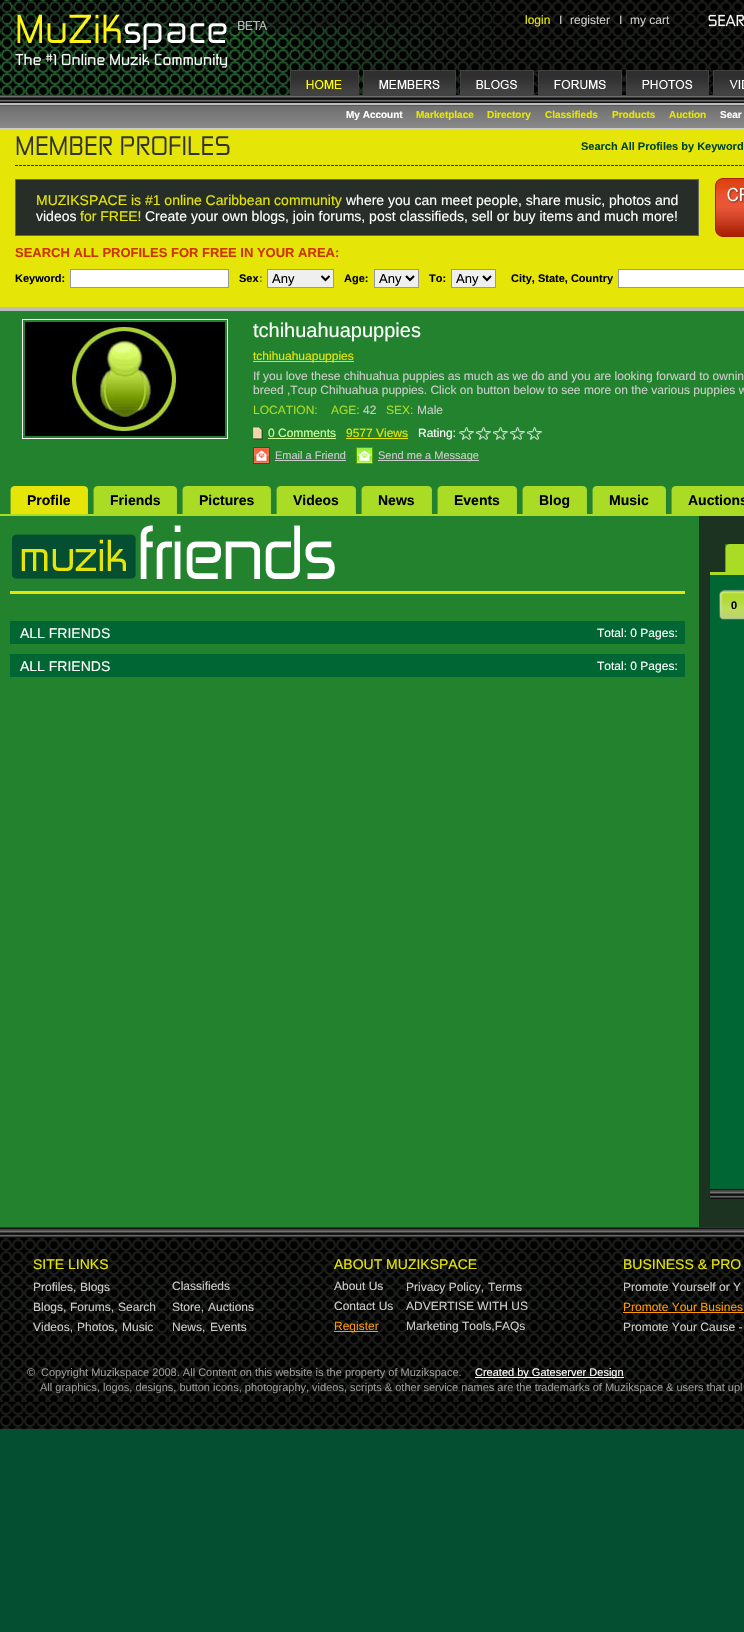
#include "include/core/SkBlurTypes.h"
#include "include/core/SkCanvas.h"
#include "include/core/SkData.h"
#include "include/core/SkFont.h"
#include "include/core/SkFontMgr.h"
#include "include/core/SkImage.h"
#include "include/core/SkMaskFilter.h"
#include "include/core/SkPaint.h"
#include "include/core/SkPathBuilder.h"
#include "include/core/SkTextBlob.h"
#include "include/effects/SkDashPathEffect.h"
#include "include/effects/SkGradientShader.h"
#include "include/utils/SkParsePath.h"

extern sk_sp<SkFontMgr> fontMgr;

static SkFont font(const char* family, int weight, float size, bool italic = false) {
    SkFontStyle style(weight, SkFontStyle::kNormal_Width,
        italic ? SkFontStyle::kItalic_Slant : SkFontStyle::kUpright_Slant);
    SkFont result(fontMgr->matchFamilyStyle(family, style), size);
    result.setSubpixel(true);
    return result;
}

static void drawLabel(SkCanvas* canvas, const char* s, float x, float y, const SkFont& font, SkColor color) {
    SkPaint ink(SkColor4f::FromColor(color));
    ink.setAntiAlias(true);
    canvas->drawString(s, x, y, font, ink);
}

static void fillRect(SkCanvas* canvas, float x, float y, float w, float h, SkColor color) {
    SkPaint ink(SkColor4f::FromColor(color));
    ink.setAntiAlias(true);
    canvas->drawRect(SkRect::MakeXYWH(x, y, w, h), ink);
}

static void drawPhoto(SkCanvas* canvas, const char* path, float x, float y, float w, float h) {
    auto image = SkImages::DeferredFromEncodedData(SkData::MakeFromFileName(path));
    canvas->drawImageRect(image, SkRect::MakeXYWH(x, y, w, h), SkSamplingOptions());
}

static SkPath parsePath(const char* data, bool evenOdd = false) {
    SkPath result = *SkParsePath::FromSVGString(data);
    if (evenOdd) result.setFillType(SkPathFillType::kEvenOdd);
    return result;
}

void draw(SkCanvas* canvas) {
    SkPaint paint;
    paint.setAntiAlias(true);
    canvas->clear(0xFF044F31);
    drawPhoto(canvas, "assets/img1.png", 493, 0, 251, 95);
    drawPhoto(canvas, "assets/img2.png", 0, 0, 493, 95);
    drawPhoto(canvas, "assets/img3.png", 15, 14, 252, 56);
    SkFont font1 = font("Liberation Sans", 400, 12);
    drawLabel(canvas, "login", 525, 24, font1, 0xFFE5E508);
    drawLabel(canvas, "I", 559, 24, font1, 0xFFCCCCCC);
    drawLabel(canvas, "register", 570, 24, font1, 0xFFCCCCCC);
    drawLabel(canvas, "I", 619, 24, font1, 0xFFCCCCCC);
    drawLabel(canvas, "my cart", 630, 24, font1, 0xFFCCCCCC);
    drawPhoto(canvas, "assets/img4.png", 708, 14, 36, 13);
    drawPhoto(canvas, "assets/img5.png", 291, 70, 67, 24);
    fillRect(canvas, 358, 70, 1, 25, 0xFF424242);
    fillRect(canvas, 290, 94, 69, 1, 0xFF424242);
    fillRect(canvas, 290, 70, 1, 25, 0xFF424242);
    drawPhoto(canvas, "assets/img6.png", 306, 80, 36, 9);
    drawPhoto(canvas, "assets/img7.png", 364, 70, 91, 24);
    fillRect(canvas, 455, 70, 1, 25, 0xFF424242);
    fillRect(canvas, 363, 94, 93, 1, 0xFF424242);
    fillRect(canvas, 363, 70, 1, 25, 0xFF424242);
    drawPhoto(canvas, "assets/img8.png", 379, 80, 61, 9);
    drawPhoto(canvas, "assets/img9.png", 461, 70, 72, 24);
    fillRect(canvas, 533, 70, 1, 25, 0xFF424242);
    fillRect(canvas, 460, 94, 74, 1, 0xFF424242);
    fillRect(canvas, 460, 70, 1, 25, 0xFF424242);
    drawPhoto(canvas, "assets/img10.png", 476, 80, 41, 9);
    drawPhoto(canvas, "assets/img11.png", 539, 70, 82, 24);
    fillRect(canvas, 621, 70, 1, 25, 0xFF424242);
    fillRect(canvas, 538, 94, 84, 1, 0xFF424242);
    fillRect(canvas, 538, 70, 1, 25, 0xFF424242);
    drawPhoto(canvas, "assets/img12.png", 554, 80, 52, 9);
    drawPhoto(canvas, "assets/img13.png", 627, 70, 81, 24);
    fillRect(canvas, 708, 70, 1, 25, 0xFF424242);
    fillRect(canvas, 626, 94, 83, 1, 0xFF424242);
    fillRect(canvas, 626, 70, 1, 25, 0xFF424242);
    drawPhoto(canvas, "assets/img14.png", 642, 80, 51, 9);
    drawPhoto(canvas, "assets/img15.png", 714, 70, 30, 24);
    fillRect(canvas, 713, 94, 31, 1, 0xFF424242);
    fillRect(canvas, 713, 70, 1, 25, 0xFF424242);
    drawPhoto(canvas, "assets/img16.png", 729, 80, 15, 9);
    fillRect(canvas, 0, 129, 744, 178, 0xFFE5E508);
    drawPhoto(canvas, "assets/img17.png", 0, 95, 744, 34);
    SkFont font2 = font("Liberation Sans", 700, 10);
    drawLabel(canvas, "My Account", 346, 118, font2, 0xFFFFFFFF);
    drawLabel(canvas, "Marketplace", 416, 118, font2, 0xFFE5E508);
    drawLabel(canvas, "Directory", 487, 118, font2, 0xFFE5E508);
    drawLabel(canvas, "Classifieds", 545, 118, font2, 0xFFE5E508);
    drawLabel(canvas, "Products", 612, 118, font2, 0xFFE5E508);
    drawLabel(canvas, "Auction", 669, 118, font2, 0xFFE5E508);
    drawLabel(canvas, "Sear", 720, 118, font2, 0xFFFFFFFF);
    drawPhoto(canvas, "assets/img18.png", 16, 136, 214, 19);
    SkFont font3 = font("Liberation Sans", 700, 11);
    drawLabel(canvas, "Search All Profiles by Keyword", 581, 150, font3, 0xFF00442A);
    drawPhoto(canvas, "assets/img19.png", 15, 165, 729, 1);
    paint.setColor(0xFF272E28);
    canvas->drawRect(SkRect::MakeXYWH(15.5f, 179.5f, 683, 56), paint);
    paint.setStroke(true);
    paint.setStrokeWidth(1);
    paint.setColor(0xFF666666);
    canvas->drawRect(SkRect::MakeXYWH(15.5f, 179.5f, 683, 56), paint);
    SkFont font4 = font("Liberation Sans", 400, 14);
    drawLabel(canvas, "MUZIKSPACE is #1 online Caribbean community", 36, 205, font4, 0xFFE5E508);
    drawLabel(canvas, "where you can meet people, share music, photos and", 346, 205, font4, 0xFFFFFFFF);
    drawLabel(canvas, "videos", 36, 221, font4, 0xFFFFFFFF);
    drawLabel(canvas, "for FREE!", 80, 221, font4, 0xFFE5E508);
    drawLabel(canvas, "Create your own blogs, join forums, post classifieds, sell or buy items and much more!", 145, 221, font4, 0xFFFFFFFF);
    drawPhoto(canvas, "assets/img20.png", 715, 178, 29, 59);
    SkFont font5 = font("Liberation Sans", 700, 13);
    drawLabel(canvas, "SEARCH ALL PROFILES FOR FREE IN YOUR AREA:", 15, 257, font5, 0xFFCC3300);
    drawLabel(canvas, "Keyword:", 15, 282, font3, 0xFF000000);
    paint.setStroke(false);
    paint.setColor(0xFFFFFFFF);
    canvas->drawRect(SkRect::MakeXYWH(70.5f, 269.5f, 158, 18), paint);
    paint.setStroke(true);
    paint.setColor(0xFF999999);
    canvas->drawRect(SkRect::MakeXYWH(70.5f, 269.5f, 158, 18), paint);
    drawLabel(canvas, "Sex", 239, 282, font3, 0xFF000000);
    drawLabel(canvas, ":", 259, 282, font3, 0xFF666666);
    paint.setStroke(false);
    paint.setColor(0xFFEFEFEF);
    canvas->drawRect(SkRect::MakeXYWH(267.5f, 269.5f, 66, 18), paint);
    paint.setStroke(true);
    paint.setColor(0xFF999999);
    canvas->drawRect(SkRect::MakeXYWH(267.5f, 269.5f, 66, 18), paint);
    paint.setStrokeWidth(2);
    paint.setColor(0xFF000000);
    canvas->drawPath(parsePath("M321.5 276L325.5 280L329.5 276"), paint);
    SkFont font6 = font("Liberation Sans", 400, 13);
    drawLabel(canvas, "Any", 272, 283, font6, 0xFF000000);
    drawLabel(canvas, "Age:", 344, 282, font3, 0xFF000000);
    paint.setStroke(false);
    paint.setColor(0xFFEFEFEF);
    canvas->drawRect(SkRect::MakeXYWH(374.5f, 269.5f, 44, 18), paint);
    paint.setStroke(true);
    paint.setStrokeWidth(1);
    paint.setColor(0xFF999999);
    canvas->drawRect(SkRect::MakeXYWH(374.5f, 269.5f, 44, 18), paint);
    paint.setStrokeWidth(2);
    paint.setColor(0xFF000000);
    canvas->drawPath(parsePath("M406 276L410 280L414 276"), paint);
    drawLabel(canvas, "Any", 379, 283, font6, 0xFF000000);
    drawLabel(canvas, "To:", 429, 282, font3, 0xFF000000);
    paint.setStroke(false);
    paint.setColor(0xFFEFEFEF);
    canvas->drawRect(SkRect::MakeXYWH(451.5f, 269.5f, 44, 18), paint);
    paint.setStroke(true);
    paint.setStrokeWidth(1);
    paint.setColor(0xFF999999);
    canvas->drawRect(SkRect::MakeXYWH(451.5f, 269.5f, 44, 18), paint);
    paint.setStrokeWidth(2);
    paint.setColor(0xFF000000);
    canvas->drawPath(parsePath("M483 276L487 280L491 276"), paint);
    drawLabel(canvas, "Any", 456, 283, font6, 0xFF000000);
    drawLabel(canvas, "City, State, Country", 511, 282, font3, 0xFF000000);
    paint.setStroke(false);
    paint.setColor(0xFFFFFFFF);
    canvas->drawRect(SkRect::MakeXYWH(618.5f, 269.5f, 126, 18), paint);
    paint.setStroke(true);
    paint.setStrokeWidth(1);
    paint.setColor(0xFF999999);
    canvas->drawRect(SkRect::MakeXYWH(618.5f, 269.5f, 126, 18), paint);
    fillRect(canvas, 0, 307, 744, 4, 0xFFBEBDBD);
    fillRect(canvas, 0, 311, 744, 916, 0xFF23822E);
    paint.setColor(0xFFFFFFFF);
    canvas->drawRect(SkRect::MakeXYWH(22.5f, 319.5f, 205, 119), paint);
    drawPhoto(canvas, "assets/img21.png", 25, 322, 200, 114);
    SkFont font7 = font("Liberation Sans", 400, 20);
    drawLabel(canvas, "tchihuahuapuppies", 253, 337, font7, 0xFFFFFFFF);
    fillRect(canvas, 253, 361, 101, 1, 0xFFE5E508);
    drawLabel(canvas, "tchihuahuapuppies", 253, 360, font1, 0xFFE5E508);
    drawLabel(canvas, "If you love these chihuahua puppies as much as we do and you are looking forward to ownin", 253, 380, font1, 0xFFCCCCCC);
    drawLabel(canvas, "breed ,Tcup Chihuahua puppies. Click on button below to see more on the various puppies w", 253, 394, font1, 0xFFCCCCCC);
    drawLabel(canvas, "LOCATION:", 253, 414, font1, 0xFFAADC25);
    drawLabel(canvas, "AGE:", 331, 414, font1, 0xFFAADC25);
    drawLabel(canvas, "42", 363, 414, font1, 0xFFCCCCCC);
    drawLabel(canvas, "SEX:", 386, 414, font1, 0xFFAADC25);
    drawLabel(canvas, "Male", 417, 414, font1, 0xFFCCCCCC);
    drawPhoto(canvas, "assets/img22.png", 253, 427, 10, 13);
    drawLabel(canvas, "0 Comments", 268, 437, font1, 0xFFCCFF99);
    fillRect(canvas, 268, 438, 68, 1, 0xFFCCFF99);
    drawLabel(canvas, "9577 Views", 346, 437, font1, 0xFFE5E508);
    fillRect(canvas, 346, 438, 62, 1, 0xFFE5E508);
    drawLabel(canvas, "Rating:", 418, 437, font1, 0xFFFFFFFF);
    drawPhoto(canvas, "assets/img23.png", 459, 427, 83, 13);
    drawPhoto(canvas, "assets/img24.png", 253, 447, 17, 17);
    SkFont font8 = font("Liberation Sans", 400, 11);
    drawLabel(canvas, "Email a Friend", 275, 459, font8, 0xFFCCCCCC);
    fillRect(canvas, 275, 460, 71, 1, 0xFFCCCCCC);
    drawPhoto(canvas, "assets/img25.png", 356, 447, 17, 17);
    fillRect(canvas, 378, 460, 101, 1, 0xFFCCCCCC);
    drawLabel(canvas, "Send me a Message", 378, 459, font8, 0xFFCCCCCC);
    drawPhoto(canvas, "assets/img26.png", 10, 486, 5, 28);
    fillRect(canvas, 15, 486, 68, 28, 0xFFE5E508);
    drawPhoto(canvas, "assets/img27.png", 83, 486, 5, 28);
    SkFont font9 = font("Liberation Sans", 700, 14);
    drawLabel(canvas, "Profile", 27, 505, font9, 0xFF000000);
    drawPhoto(canvas, "assets/img28.png", 93, 486, 5, 28);
    fillRect(canvas, 98, 486, 74, 28, 0xFFAADC25);
    drawPhoto(canvas, "assets/img29.png", 172, 486, 5, 28);
    drawLabel(canvas, "Friends", 110, 505, font9, 0xFF000000);
    drawPhoto(canvas, "assets/img28.png", 182, 486, 5, 28);
    fillRect(canvas, 187, 486, 79, 28, 0xFFAADC25);
    drawPhoto(canvas, "assets/img29.png", 266, 486, 5, 28);
    drawLabel(canvas, "Pictures", 199, 505, font9, 0xFF000000);
    drawPhoto(canvas, "assets/img28.png", 276, 486, 5, 28);
    fillRect(canvas, 281, 486, 70, 28, 0xFFAADC25);
    drawPhoto(canvas, "assets/img29.png", 351, 486, 5, 28);
    drawLabel(canvas, "Videos", 293, 505, font9, 0xFF000000);
    drawPhoto(canvas, "assets/img28.png", 361, 486, 5, 28);
    fillRect(canvas, 366, 486, 61, 28, 0xFFAADC25);
    drawPhoto(canvas, "assets/img29.png", 427, 486, 5, 28);
    drawLabel(canvas, "News", 378, 505, font9, 0xFF000000);
    drawPhoto(canvas, "assets/img28.png", 437, 486, 5, 28);
    fillRect(canvas, 442, 486, 70, 28, 0xFFAADC25);
    drawPhoto(canvas, "assets/img29.png", 512, 486, 5, 28);
    drawLabel(canvas, "Events", 454, 505, font9, 0xFF000000);
    drawPhoto(canvas, "assets/img28.png", 522, 486, 5, 28);
    fillRect(canvas, 527, 486, 55, 28, 0xFFAADC25);
    drawPhoto(canvas, "assets/img29.png", 582, 486, 5, 28);
    drawLabel(canvas, "Blog", 539, 505, font9, 0xFF000000);
    drawPhoto(canvas, "assets/img28.png", 592, 486, 5, 28);
    fillRect(canvas, 597, 486, 64, 28, 0xFFAADC25);
    drawPhoto(canvas, "assets/img29.png", 661, 486, 5, 28);
    drawLabel(canvas, "Music", 609, 505, font9, 0xFF000000);
    drawPhoto(canvas, "assets/img28.png", 671, 486, 5, 28);
    fillRect(canvas, 676, 486, 68, 28, 0xFFAADC25);
    drawLabel(canvas, "Auctions", 688, 505, font9, 0xFF000000);
    fillRect(canvas, 0, 514, 744, 2, 0xFFAADC25);
    fillRect(canvas, 699, 516, 45, 711, 0xFF1D3321);
    drawPhoto(canvas, "assets/img28.png", 725, 544, 5, 28);
    fillRect(canvas, 730, 544, 14, 28, 0xFFAADC25);
    fillRect(canvas, 710, 572, 34, 3, 0xFFAADC25);
    fillRect(canvas, 710, 575, 34, 614, 0xFF006633);
    drawPhoto(canvas, "assets/img30.png", 719, 589, 25, 31);
    drawLabel(canvas, "0", 731, 609, font3, 0xFF000000);
    drawPhoto(canvas, "assets/img31.png", 710, 1189, 34, 10);
    drawPhoto(canvas, "assets/img32.png", 12, 525, 323, 54);
    fillRect(canvas, 10, 591, 675, 3, 0xFFE5E508);
    fillRect(canvas, 10, 621, 675, 23, 0xFF006633);
    drawLabel(canvas, "ALL FRIENDS", 20, 638, font4, 0xFFFFFFFF);
    drawLabel(canvas, "Total: 0 Pages:", 597, 637, font1, 0xFFFFFFFF);
    fillRect(canvas, 10, 654, 675, 23, 0xFF006633);
    drawLabel(canvas, "ALL FRIENDS", 20, 671, font4, 0xFFFFFFFF);
    drawLabel(canvas, "Total: 0 Pages:", 597, 670, font1, 0xFFFFFFFF);
    drawPhoto(canvas, "assets/img33.png", 0, 1228, 744, 10);
    drawPhoto(canvas, "assets/img34.png", 0, 1238, 744, 191);
    drawLabel(canvas, "SITE LINKS", 33, 1269, font4, 0xFFE5E508);
    drawLabel(canvas, "Profiles,", 33, 1291, font1, 0xFFCCCCCC);
    drawLabel(canvas, "Blogs", 80, 1291, font1, 0xFFCCCCCC);
    drawLabel(canvas, "Classifieds", 172, 1290, font1, 0xFFCCCCCC);
    drawLabel(canvas, "Blogs,", 33, 1311, font1, 0xFFCCCCCC);
    drawLabel(canvas, "Forums,", 70, 1311, font1, 0xFFCCCCCC);
    drawLabel(canvas, "Search", 118, 1311, font1, 0xFFCCCCCC);
    drawLabel(canvas, "Store,", 172, 1311, font1, 0xFFCCCCCC);
    drawLabel(canvas, "Auctions", 208, 1311, font1, 0xFFCCCCCC);
    drawLabel(canvas, "Videos,", 33, 1331, font1, 0xFFCCCCCC);
    drawLabel(canvas, "Photos,", 77, 1331, font1, 0xFFCCCCCC);
    drawLabel(canvas, "Music", 122, 1331, font1, 0xFFCCCCCC);
    drawLabel(canvas, "News,", 172, 1331, font1, 0xFFCCCCCC);
    drawLabel(canvas, "Events", 210, 1331, font1, 0xFFCCCCCC);
    drawLabel(canvas, "ABOUT MUZIKSPACE", 334, 1269, font4, 0xFFE5E508);
    drawLabel(canvas, "About Us", 334, 1290, font1, 0xFFCCCCCC);
    drawLabel(canvas, "Privacy Policy,", 406, 1291, font1, 0xFFCCCCCC);
    drawLabel(canvas, "Terms", 488, 1291, font1, 0xFFCCCCCC);
    drawLabel(canvas, "Contact Us", 334, 1310, font1, 0xFFCCCCCC);
    drawLabel(canvas, "ADVERTISE WITH US", 406, 1310, font1, 0xFFCCCCCC);
    fillRect(canvas, 334, 1331, 44, 1, 0xFFFF9900);
    drawLabel(canvas, "Register", 334, 1330, font1, 0xFFFF9900);
    drawLabel(canvas, "Marketing Tools,FAQs", 406, 1330, font1, 0xFFCCCCCC);
    drawLabel(canvas, "BUSINESS & PRO", 623, 1269, font4, 0xFFE5E508);
    drawLabel(canvas, "Promote Yourself or Y", 623, 1291, font1, 0xFFCCCCCC);
    drawLabel(canvas, "Promote Your Busines", 623, 1311, font1, 0xFFFF9900);
    fillRect(canvas, 623, 1312, 121, 1, 0xFFFF9900);
    drawLabel(canvas, "Promote Your Cause -", 623, 1331, font1, 0xFFCCCCCC);
    drawLabel(canvas, "©", 27, 1376, font8, 0xFF999999);
    drawLabel(canvas, "Copyright Muzikspace 2008. All Content on this website is the property of Muzikspace.", 41, 1376, font8, 0xFF999999);
    fillRect(canvas, 475, 1377, 149, 1, 0xFFFFFFFF);
    drawLabel(canvas, "Created by Gateserver Design", 475, 1376, font8, 0xFFFFFFFF);
    drawLabel(canvas, "All graphics, logos, designs, button icons, photography, videos, scripts & other service names are the trademarks of Muzikspace & users that upl", 40, 1391, font8, 0xFF999999);
}
